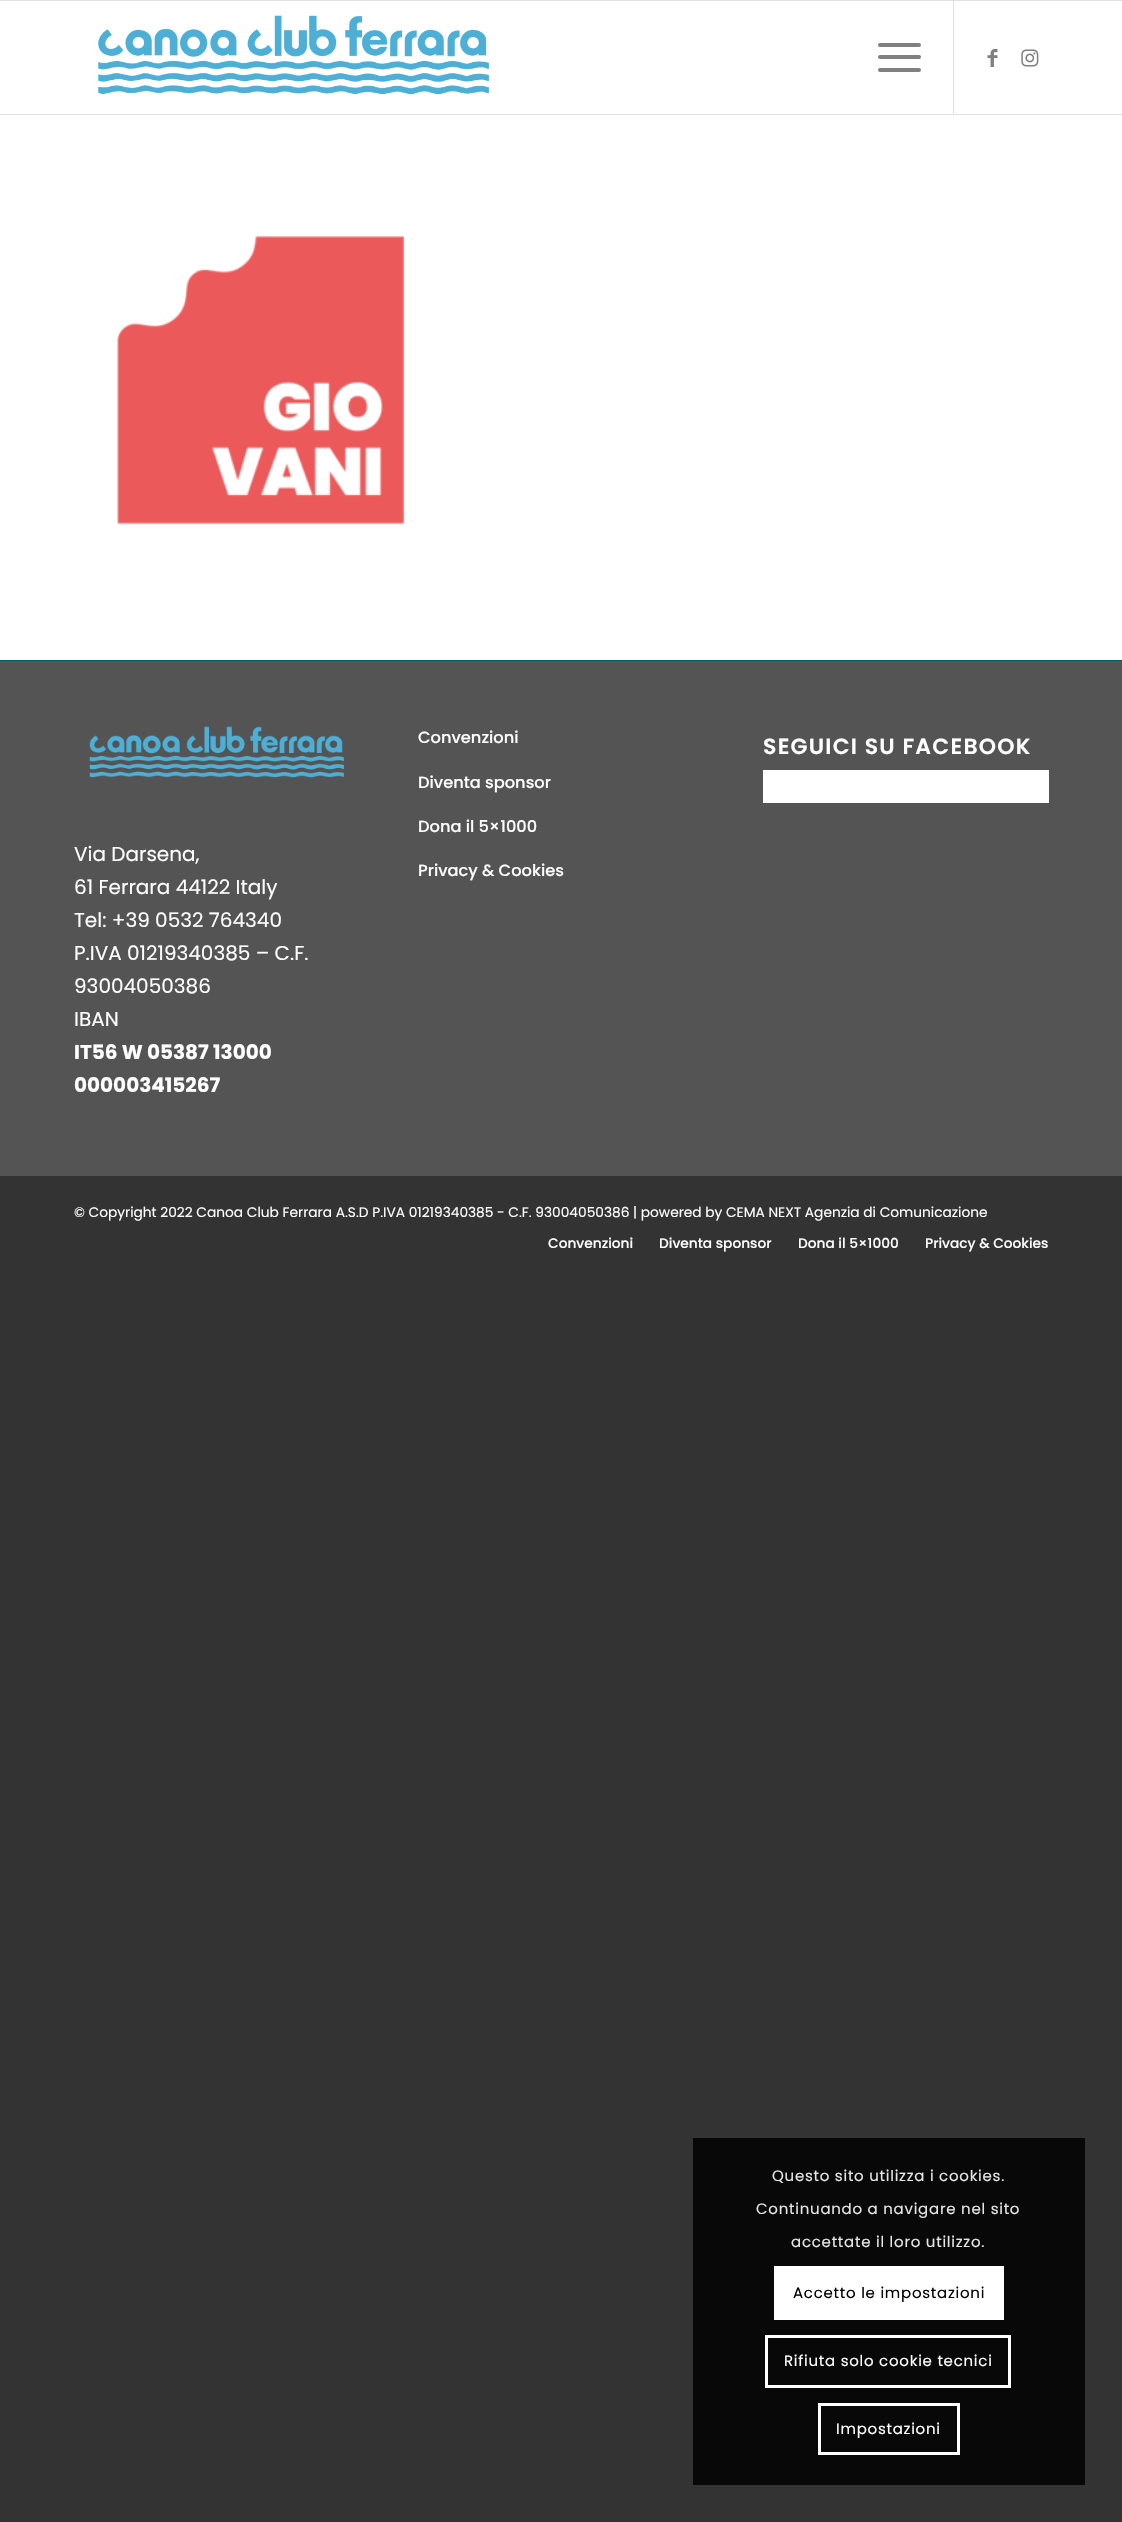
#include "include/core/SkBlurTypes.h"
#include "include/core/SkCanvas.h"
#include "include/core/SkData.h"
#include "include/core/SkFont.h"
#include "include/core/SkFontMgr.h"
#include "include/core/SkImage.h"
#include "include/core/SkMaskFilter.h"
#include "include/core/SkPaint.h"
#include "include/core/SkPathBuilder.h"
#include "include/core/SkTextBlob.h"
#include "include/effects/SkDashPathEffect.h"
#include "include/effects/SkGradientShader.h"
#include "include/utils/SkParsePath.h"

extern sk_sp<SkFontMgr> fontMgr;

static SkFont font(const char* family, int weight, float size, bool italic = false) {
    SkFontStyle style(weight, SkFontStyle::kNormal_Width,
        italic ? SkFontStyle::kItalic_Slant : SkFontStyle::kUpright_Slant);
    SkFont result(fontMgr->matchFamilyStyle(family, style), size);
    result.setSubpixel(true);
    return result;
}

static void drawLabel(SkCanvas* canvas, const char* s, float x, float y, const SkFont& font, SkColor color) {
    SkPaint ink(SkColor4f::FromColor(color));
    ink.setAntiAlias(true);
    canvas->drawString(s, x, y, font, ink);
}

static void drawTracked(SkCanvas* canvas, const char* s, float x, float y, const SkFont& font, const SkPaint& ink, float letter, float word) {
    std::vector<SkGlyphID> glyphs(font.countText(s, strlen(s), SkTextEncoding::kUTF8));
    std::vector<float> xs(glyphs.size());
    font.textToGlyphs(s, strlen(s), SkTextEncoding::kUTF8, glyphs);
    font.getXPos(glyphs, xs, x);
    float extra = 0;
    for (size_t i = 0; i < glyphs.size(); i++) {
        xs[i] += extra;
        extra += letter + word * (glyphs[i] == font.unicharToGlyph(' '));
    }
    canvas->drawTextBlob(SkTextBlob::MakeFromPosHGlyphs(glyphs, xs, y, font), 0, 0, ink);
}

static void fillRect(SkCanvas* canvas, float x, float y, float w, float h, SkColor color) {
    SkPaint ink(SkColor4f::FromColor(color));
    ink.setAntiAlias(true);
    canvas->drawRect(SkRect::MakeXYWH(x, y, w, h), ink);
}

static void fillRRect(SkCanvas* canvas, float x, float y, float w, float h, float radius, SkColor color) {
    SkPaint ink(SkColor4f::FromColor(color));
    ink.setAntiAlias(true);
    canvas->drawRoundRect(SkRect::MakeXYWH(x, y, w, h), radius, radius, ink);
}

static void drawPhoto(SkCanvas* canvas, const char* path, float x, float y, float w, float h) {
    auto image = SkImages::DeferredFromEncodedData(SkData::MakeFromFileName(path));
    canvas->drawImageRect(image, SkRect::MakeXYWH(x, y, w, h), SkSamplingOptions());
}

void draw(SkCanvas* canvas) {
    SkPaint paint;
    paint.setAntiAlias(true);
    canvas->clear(0xFF333333);
    fillRect(canvas, 0, 1, 1122, 659, 0xFFFFFFFF);
    fillRect(canvas, 0, 0, 1122, 1, 0xFFE1E1E1);
    fillRect(canvas, 0, 114, 1122, 1, 0xFFE1E1E1);
    drawPhoto(canvas, "assets/img1.png", 98, 15, 391, 80);
    fillRect(canvas, 953, 1, 1, 113, 0xFFE1E1E1);
    fillRRect(canvas, 878, 55, 43, 4, 2, 0xFF808080);
    fillRRect(canvas, 878, 43, 43, 4, 2, 0xFF808080);
    fillRRect(canvas, 878, 68, 43, 4, 2, 0xFF808080);
    drawPhoto(canvas, "assets/img2.png", 987, 49, 11, 18);
    drawPhoto(canvas, "assets/img3.png", 1021, 49, 18, 18);
    drawPhoto(canvas, "assets/img4.png", 117, 235, 288, 290);
    fillRect(canvas, 0, 661, 1122, 515, 0xFF545454);
    fillRect(canvas, 0, 660, 1122, 1, 0xFF03596E);
    SkFont font1 = font("Poppins", 500, 16.25f);
    drawLabel(canvas, "Convenzioni", 418, 743, font1, 0xFFFFFFFF);
    drawLabel(canvas, "Diventa sponsor", 418, 788, font1, 0xFFFFFFFF);
    drawLabel(canvas, "Dona il 5×1000", 418, 832, font1, 0xFFFFFFFF);
    drawLabel(canvas, "Privacy & Cookies", 418, 876, font1, 0xFFFFFFFF);
    SkFont font2 = font("Poppins", 600, 22);
    paint.setColor(0xFFFFFFFF);
    drawTracked(canvas, "SEGUICI SU FACEBOOK", 763, 754, font2, paint, 1.25f, 0);
    fillRect(canvas, 763, 770, 286, 33, 0xFFFFFFFF);
    drawPhoto(canvas, "assets/img5.png", 89, 726, 255, 52);
    SkFont font3 = font("Poppins", 400, 20);
    drawLabel(canvas, "Via Darsena,", 74, 861, font3, 0xFFFFFFFF);
    drawLabel(canvas, "61 Ferrara 44122 Italy", 74, 894, font3, 0xFFFFFFFF);
    drawLabel(canvas, "Tel: +39 0532 764340", 74, 927, font3, 0xFFFFFFFF);
    drawLabel(canvas, "P.IVA 01219340385 – C.F.", 74, 960, font3, 0xFFFFFFFF);
    drawLabel(canvas, "93004050386", 74, 993, font3, 0xFFFFFFFF);
    drawLabel(canvas, "IBAN", 74, 1026, font3, 0xFFFFFFFF);
    SkFont font4 = font("Poppins", 700, 20);
    drawLabel(canvas, "IT56 W 05387 13000", 74, 1059, font4, 0xFFFFFFFF);
    drawLabel(canvas, "000003415267", 74, 1092, font4, 0xFFFFFFFF);
    SkFont font5 = font("Poppins", 400, 13.75f);
    drawLabel(canvas, "© Copyright 2022 Canoa Club Ferrara A.S.D P.IVA 01219340385 - C.F. 93004050386 | powered by CEMA NEXT Agenzia di Comunicazione", 74, 1217, font5, 0xFFFFFFFF);
    SkFont font6 = font("Poppins", 500, 13.75f);
    drawLabel(canvas, "Convenzioni", 548, 1248, font6, 0xFFFFFFFF);
    drawLabel(canvas, "Diventa sponsor", 659, 1248, font6, 0xFFFFFFFF);
    drawLabel(canvas, "Dona il 5×1000", 798, 1248, font6, 0xFFFFFFFF);
    drawLabel(canvas, "Privacy & Cookies", 925, 1248, font6, 0xFFFFFFFF);
    fillRect(canvas, 693, 2138, 392, 347, 0xFF080808);
    SkFont font7 = font("Poppins", 400, 15);
    paint.setColor(0xFFE6E6E6);
    drawTracked(canvas, "Questo sito utilizza i cookies.", 772, 2181, font7, paint, 0.75f, 0);
    drawTracked(canvas, "Continuando a navigare nel sito", 756, 2214, font7, paint, 0.75f, 0);
    drawTracked(canvas, "accettate il loro utilizzo.", 791, 2247, font7, paint, 0.75f, 0);
    fillRect(canvas, 774, 2266, 230, 54, 0xFFFFFFFF);
    paint.setColor(0xFF000000);
    drawTracked(canvas, "Accetto le impostazioni", 793, 2298, font7, paint, 0.75f, 0);
    paint.setStroke(true);
    paint.setStrokeWidth(3);
    paint.setColor(0xFFFFFFFF);
    canvas->drawRect(SkRect::MakeXYWH(766.5f, 2336.5f, 243, 50), paint);
    paint.setStroke(false);
    drawTracked(canvas, "Rifiuta solo cookie tecnici", 784, 2366, font7, paint, 0.75f, 0);
    paint.setStroke(true);
    canvas->drawRect(SkRect::MakeXYWH(819.5f, 2404.5f, 139, 49), paint);
    paint.setStroke(false);
    drawTracked(canvas, "Impostazioni", 836, 2434, font7, paint, 0.75f, 0);
}
